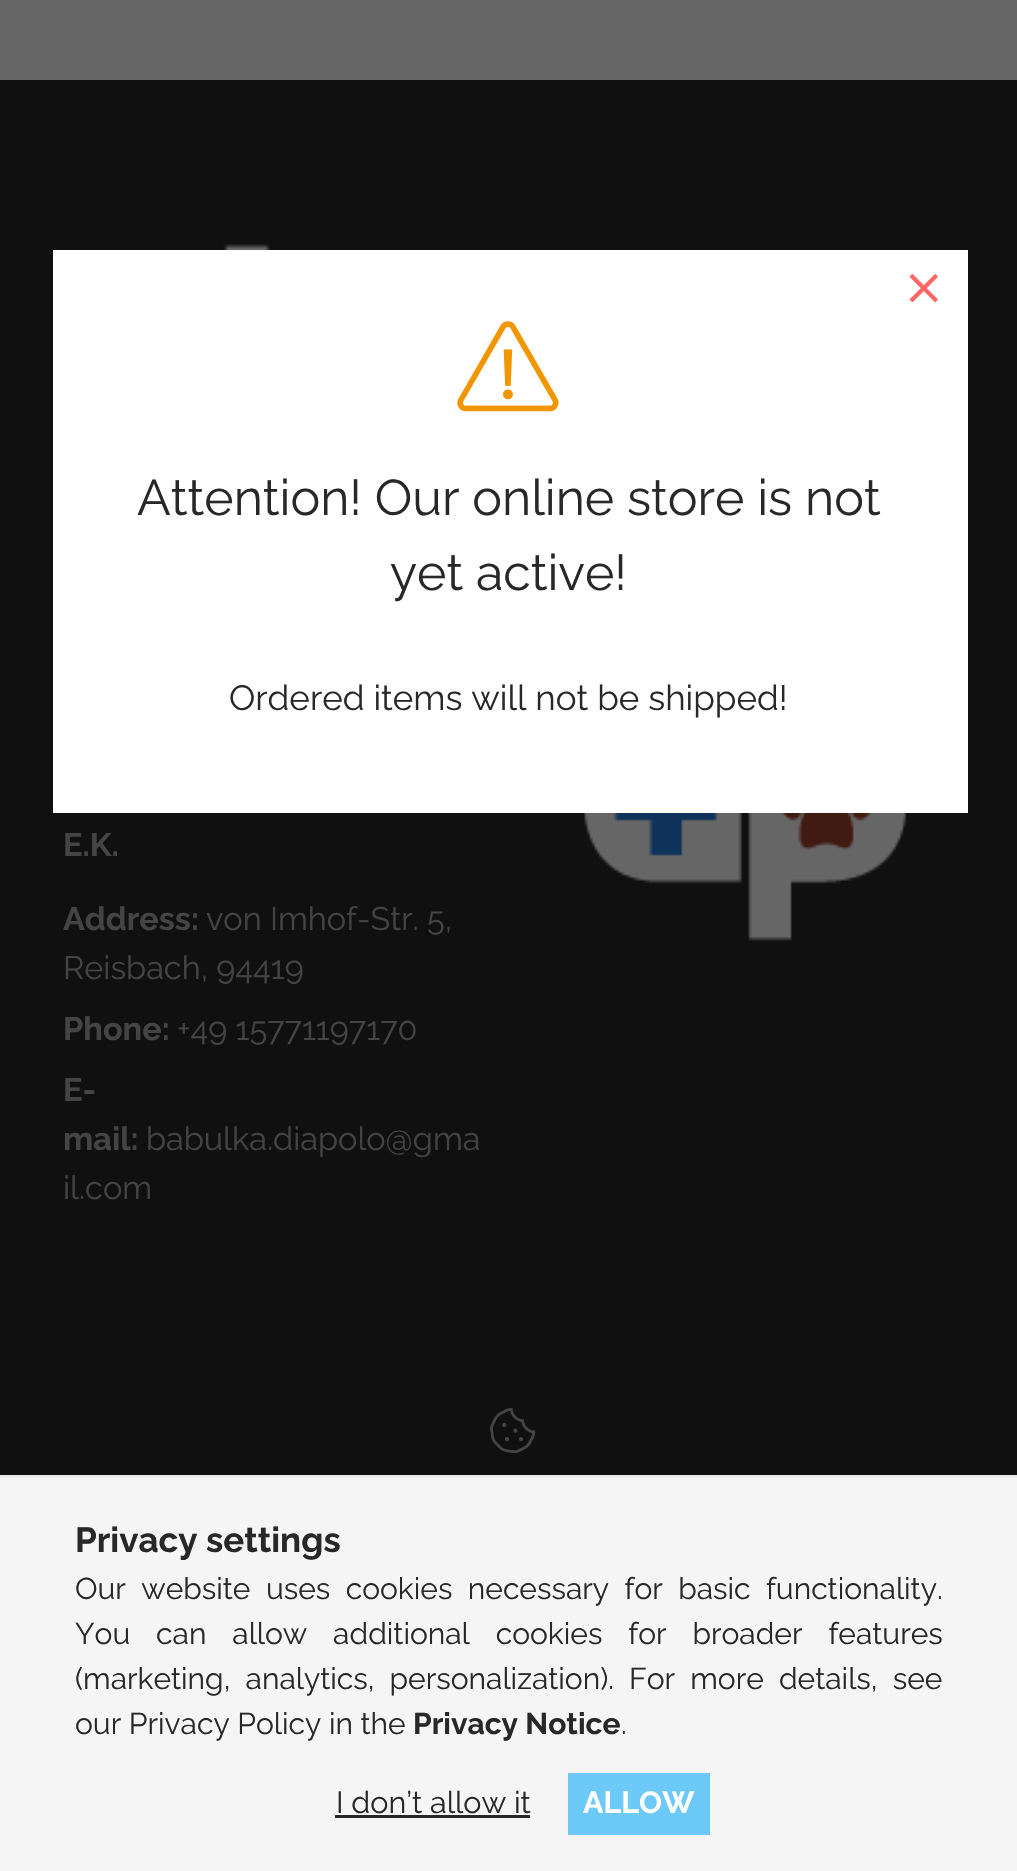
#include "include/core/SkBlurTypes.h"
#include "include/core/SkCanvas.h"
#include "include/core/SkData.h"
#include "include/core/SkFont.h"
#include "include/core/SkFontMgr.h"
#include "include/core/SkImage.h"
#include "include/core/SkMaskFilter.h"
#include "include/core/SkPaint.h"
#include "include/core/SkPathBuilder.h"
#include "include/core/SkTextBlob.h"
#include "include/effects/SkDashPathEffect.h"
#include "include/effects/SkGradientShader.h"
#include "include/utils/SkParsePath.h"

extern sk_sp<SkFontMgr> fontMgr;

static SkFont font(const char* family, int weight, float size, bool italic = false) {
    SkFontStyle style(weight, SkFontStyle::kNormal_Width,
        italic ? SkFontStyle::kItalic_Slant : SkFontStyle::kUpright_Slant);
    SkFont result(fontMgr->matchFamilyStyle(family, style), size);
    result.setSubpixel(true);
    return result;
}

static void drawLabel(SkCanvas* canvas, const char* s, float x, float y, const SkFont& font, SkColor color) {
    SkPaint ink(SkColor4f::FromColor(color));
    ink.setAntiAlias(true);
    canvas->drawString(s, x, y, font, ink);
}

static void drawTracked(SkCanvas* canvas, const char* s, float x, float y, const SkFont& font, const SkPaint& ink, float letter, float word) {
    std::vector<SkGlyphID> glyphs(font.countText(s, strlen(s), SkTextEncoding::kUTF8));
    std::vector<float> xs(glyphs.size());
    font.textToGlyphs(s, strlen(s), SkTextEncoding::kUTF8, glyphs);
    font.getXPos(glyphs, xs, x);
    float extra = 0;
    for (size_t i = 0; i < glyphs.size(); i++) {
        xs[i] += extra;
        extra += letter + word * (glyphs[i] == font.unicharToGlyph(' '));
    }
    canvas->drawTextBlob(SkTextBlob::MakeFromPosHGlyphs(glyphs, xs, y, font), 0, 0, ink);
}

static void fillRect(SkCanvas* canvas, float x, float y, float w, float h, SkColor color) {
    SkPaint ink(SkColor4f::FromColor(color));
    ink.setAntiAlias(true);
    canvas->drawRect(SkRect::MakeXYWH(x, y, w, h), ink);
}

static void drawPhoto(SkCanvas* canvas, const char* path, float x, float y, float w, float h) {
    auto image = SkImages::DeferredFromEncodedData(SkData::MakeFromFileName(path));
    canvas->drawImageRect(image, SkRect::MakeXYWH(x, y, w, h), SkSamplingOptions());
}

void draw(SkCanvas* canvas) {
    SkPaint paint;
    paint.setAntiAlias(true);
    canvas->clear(0xFF666666);
    fillRect(canvas, 0, 80, 1017, 1395, 0xFF101010);
    fillRect(canvas, 53, 250, 915, 563, 0xFFFFFFFF);
    drawPhoto(canvas, "assets/img1.png", 909, 274, 29, 29);
    drawPhoto(canvas, "assets/img2.png", 457, 321, 102, 91);
    SkFont font1 = font("Raleway", 400, 50);
    drawLabel(canvas, "Attention! Our online store is not", 137, 515, font1, 0xFF282828);
    drawLabel(canvas, "yet active!", 390, 590, font1, 0xFF282828);
    SkFont font2 = font("Raleway", 400, 35);
    drawLabel(canvas, "Ordered items will not be shipped!", 229, 710, font2, 0xFF282828);
    drawPhoto(canvas, "assets/img3.png", 223, 244, 47, 6);
    SkFont font3 = font("Raleway", 700, 32.5f);
    drawLabel(canvas, "E.K.", 63, 856, font3, 0xFF444444);
    drawLabel(canvas, "Address:", 63, 930, font3, 0xFF444444);
    SkFont font4 = font("Raleway", 400, 32.5f);
    drawLabel(canvas, "von Imhof-Str. 5,", 206, 930, font4, 0xFF444444);
    drawLabel(canvas, "Reisbach, 94419", 63, 979, font4, 0xFF444444);
    drawLabel(canvas, "Phone:", 63, 1040, font3, 0xFF444444);
    drawLabel(canvas, "+49 15771197170", 177, 1040, font4, 0xFF444444);
    drawLabel(canvas, "E-", 63, 1101, font3, 0xFF444444);
    drawLabel(canvas, "mail:", 63, 1150, font3, 0xFF444444);
    drawLabel(canvas, "babulka.diapolo@gma", 146, 1150, font4, 0xFF444444);
    drawLabel(canvas, "il.com", 63, 1199, font4, 0xFF444444);
    drawPhoto(canvas, "assets/img4.png", 584, 813, 323, 128);
    drawPhoto(canvas, "assets/img5.png", 490, 1408, 46, 46);
    fillRect(canvas, 0, 1478, 1017, 393, 0xFFF5F5F5);
    fillRect(canvas, 0, 1475, 1017, 3, 0xFFEAEAEA);
    SkFont font5 = font("Raleway", 700, 35);
    drawLabel(canvas, "Privacy settings", 75, 1552, font5, 0xFF282828);
    SkFont font6 = font("Raleway", 400, 30);
    paint.setColor(0xFF282828);
    drawTracked(canvas, "Our website uses cookies necessary for basic functionality.", 75, 1599, font6, paint, 0, 7.75f);
    drawTracked(canvas, "You can allow additional cookies for broader features", 75, 1644, font6, paint, 0, 18.25f);
    drawTracked(canvas, "(marketing, analytics, personalization). For more details, see", 75, 1689, font6, paint, 0, 7.5f);
    drawLabel(canvas, "our Privacy Policy in the", 75, 1734, font6, 0xFF282828);
    SkFont font7 = font("Raleway", 700, 30);
    drawLabel(canvas, "Privacy Notice", 413, 1734, font7, 0xFF282828);
    drawLabel(canvas, ".", 621, 1734, font6, 0xFF282828);
    SkFont font8 = font("Raleway", 400, 30.5f);
    drawLabel(canvas, "I don’t allow it", 336, 1813, font8, 0xFF282828);
    fillRect(canvas, 335, 1815, 195, 3, 0xFF282828);
    fillRect(canvas, 568, 1773, 142, 62, 0xFF6DC9F7);
    SkFont font9 = font("Raleway", 700, 30.5f);
    drawLabel(canvas, "ALLOW", 583, 1813, font9, 0xFFFFFFFF);
}
